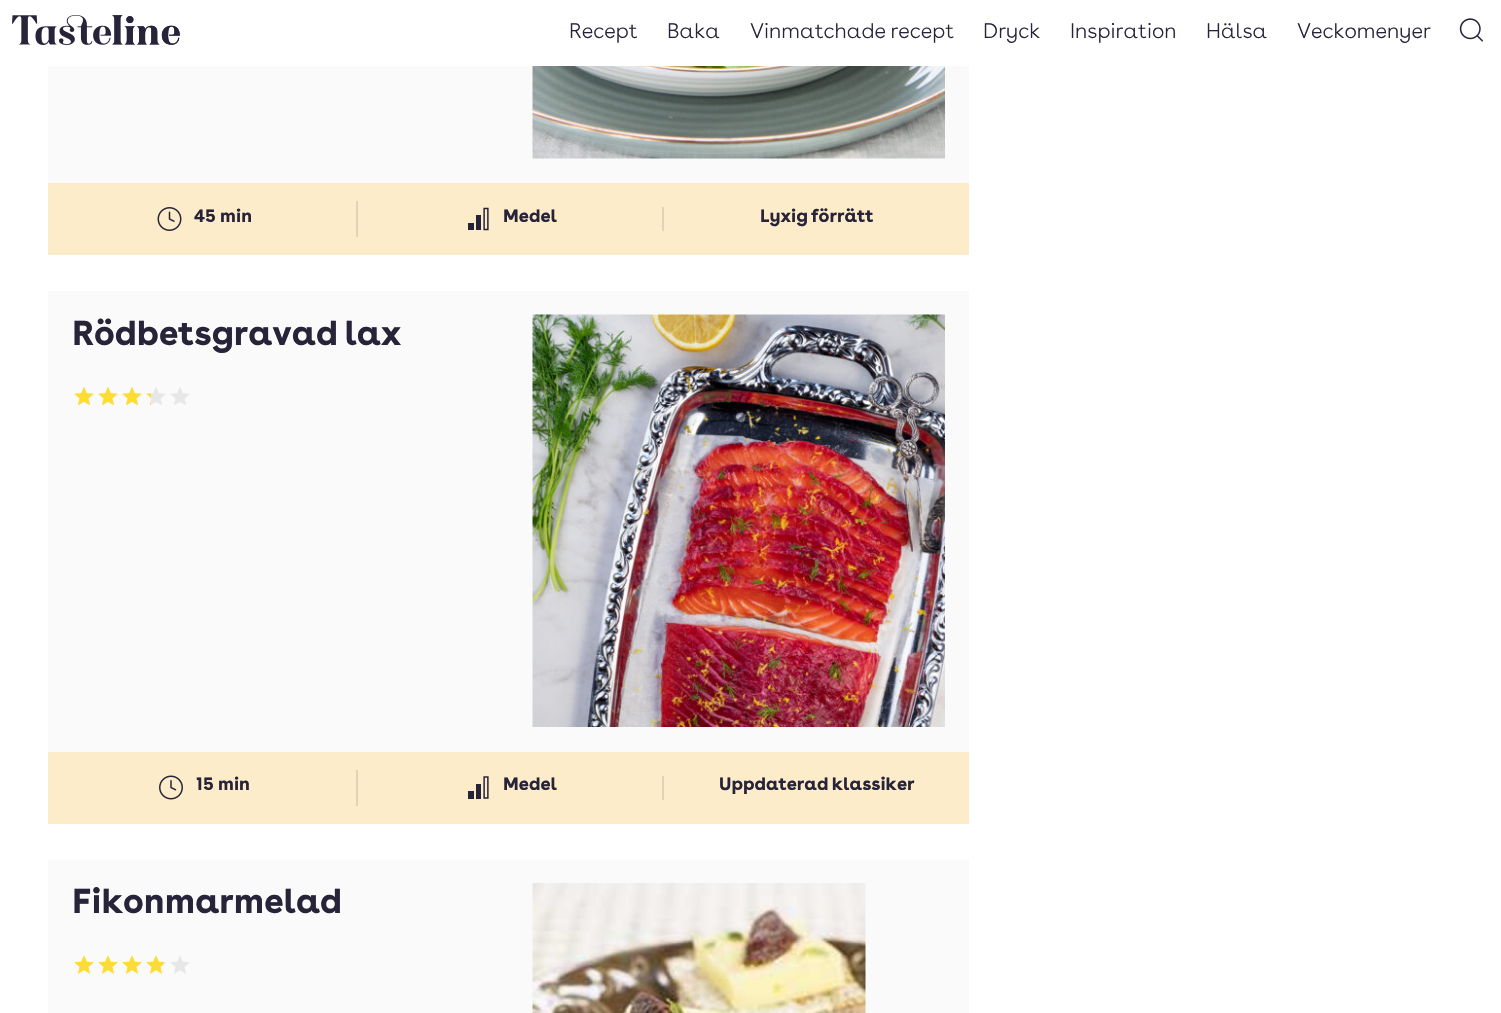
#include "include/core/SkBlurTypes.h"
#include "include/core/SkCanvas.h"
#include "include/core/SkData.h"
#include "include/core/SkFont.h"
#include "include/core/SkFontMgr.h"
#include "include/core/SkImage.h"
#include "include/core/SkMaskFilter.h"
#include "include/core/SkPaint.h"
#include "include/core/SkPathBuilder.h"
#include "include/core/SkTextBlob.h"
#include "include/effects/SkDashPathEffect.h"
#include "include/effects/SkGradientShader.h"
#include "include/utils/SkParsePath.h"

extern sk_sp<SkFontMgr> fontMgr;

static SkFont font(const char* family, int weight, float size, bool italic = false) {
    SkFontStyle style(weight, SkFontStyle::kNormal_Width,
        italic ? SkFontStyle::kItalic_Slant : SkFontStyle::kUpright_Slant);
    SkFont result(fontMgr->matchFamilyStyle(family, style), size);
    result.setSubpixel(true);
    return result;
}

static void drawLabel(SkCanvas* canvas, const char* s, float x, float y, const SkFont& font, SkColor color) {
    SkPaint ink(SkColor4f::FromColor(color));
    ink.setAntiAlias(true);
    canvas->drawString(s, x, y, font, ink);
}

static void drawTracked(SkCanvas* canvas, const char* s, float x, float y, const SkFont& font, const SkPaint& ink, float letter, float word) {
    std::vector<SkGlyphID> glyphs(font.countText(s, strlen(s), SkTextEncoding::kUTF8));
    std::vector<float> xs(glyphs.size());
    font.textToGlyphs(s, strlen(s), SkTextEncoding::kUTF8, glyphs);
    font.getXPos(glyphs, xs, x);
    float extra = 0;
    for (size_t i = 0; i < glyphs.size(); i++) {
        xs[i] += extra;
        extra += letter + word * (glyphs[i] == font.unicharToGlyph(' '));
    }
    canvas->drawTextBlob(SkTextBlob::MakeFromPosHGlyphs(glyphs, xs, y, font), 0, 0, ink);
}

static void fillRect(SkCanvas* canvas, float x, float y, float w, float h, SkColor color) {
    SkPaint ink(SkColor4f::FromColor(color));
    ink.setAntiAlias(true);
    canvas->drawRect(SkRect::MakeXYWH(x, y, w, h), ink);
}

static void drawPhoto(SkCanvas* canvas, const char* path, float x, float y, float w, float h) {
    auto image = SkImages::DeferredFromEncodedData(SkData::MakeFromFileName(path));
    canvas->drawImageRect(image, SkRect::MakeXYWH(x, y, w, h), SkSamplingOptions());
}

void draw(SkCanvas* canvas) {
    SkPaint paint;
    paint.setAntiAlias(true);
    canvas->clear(0xFFFFFFFF);
    drawPhoto(canvas, "assets/img1.png", 12, 15, 168, 30);
    SkFont font1 = font("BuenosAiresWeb", 300, 21);
    drawLabel(canvas, "Recept", 569, 38, font1, 0xFF272439);
    drawLabel(canvas, "Baka", 667, 38, font1, 0xFF272439);
    paint.setColor(0xFF272439);
    drawTracked(canvas, "Vinmatchade recept", 750, 38, font1, paint, 0, -1);
    drawLabel(canvas, "Dryck", 983, 38, font1, 0xFF272439);
    drawLabel(canvas, "Inspiration", 1070, 38, font1, 0xFF272439);
    drawLabel(canvas, "Hälsa", 1206, 38, font1, 0xFF272439);
    drawLabel(canvas, "Veckomenyer", 1297, 38, font1, 0xFF272439);
    drawPhoto(canvas, "assets/img2.png", 1459, 18, 24, 24);
    fillRect(canvas, 48, 66, 921, 117, 0xFFFAFAFA);
    drawPhoto(canvas, "assets/img3.png", 532, 66, 413, 93);
    fillRect(canvas, 48, 183, 921, 72, 0xFFFDECC9);
    drawPhoto(canvas, "assets/img4.png", 157, 207, 25, 24);
    SkFont font2 = font("BuenosAiresWeb", 700, 18);
    drawLabel(canvas, "45 min", 194, 222, font2, 0xFF272439);
    fillRect(canvas, 356, 201, 2, 36, 0xFFE2D3B7);
    drawPhoto(canvas, "assets/img5.png", 468, 207, 21, 24);
    drawLabel(canvas, "Medel", 503, 222, font2, 0xFF272439);
    fillRect(canvas, 662, 207, 2, 24, 0xFFE2D3B7);
    drawTracked(canvas, "Lyxig förrätt", 760, 222, font2, paint, 0, -1);
    fillRect(canvas, 48, 291, 921, 461, 0xFFFAFAFA);
    SkFont font3 = font("BuenosAiresWeb", 700, 34.5f);
    drawTracked(canvas, "Rödbetsgravad lax", 72, 345, font3, paint, 0, -2);
    drawPhoto(canvas, "assets/img6.png", 74, 386, 20, 20);
    drawPhoto(canvas, "assets/img6.png", 98, 386, 20, 20);
    drawPhoto(canvas, "assets/img6.png", 122, 386, 20, 20);
    drawPhoto(canvas, "assets/img7.png", 146, 387, 20, 19);
    drawPhoto(canvas, "assets/img8.png", 170, 387, 20, 18);
    drawPhoto(canvas, "assets/img9.png", 532, 314, 413, 413);
    fillRect(canvas, 48, 752, 921, 72, 0xFFFDECC9);
    drawPhoto(canvas, "assets/img10.png", 159, 775, 24, 25);
    drawLabel(canvas, "15 min", 196, 790, font2, 0xFF272439);
    fillRect(canvas, 356, 770, 2, 36, 0xFFE2D3B7);
    drawPhoto(canvas, "assets/img11.png", 468, 776, 21, 23);
    drawLabel(canvas, "Medel", 503, 790, font2, 0xFF272439);
    fillRect(canvas, 662, 776, 2, 24, 0xFFE2D3B7);
    drawTracked(canvas, "Uppdaterad klassiker", 719, 790, font2, paint, 0, -1);
    fillRect(canvas, 48, 860, 921, 153, 0xFFFAFAFA);
    drawLabel(canvas, "Fikonmarmelad", 72, 913, font3, 0xFF272439);
    drawPhoto(canvas, "assets/img12.png", 74, 955, 20, 19);
    drawPhoto(canvas, "assets/img12.png", 98, 955, 20, 19);
    drawPhoto(canvas, "assets/img12.png", 122, 955, 20, 19);
    drawPhoto(canvas, "assets/img13.png", 146, 955, 20, 19);
    drawPhoto(canvas, "assets/img14.png", 170, 955, 20, 19);
    drawPhoto(canvas, "assets/img15.png", 532, 883, 334, 130);
}
